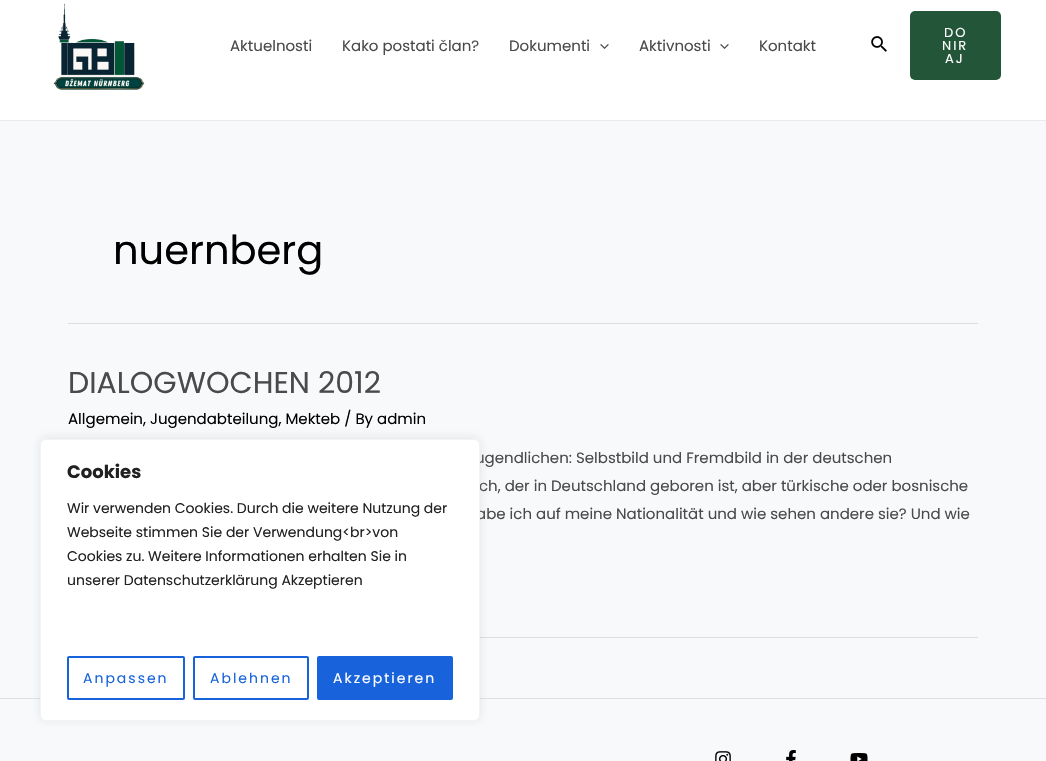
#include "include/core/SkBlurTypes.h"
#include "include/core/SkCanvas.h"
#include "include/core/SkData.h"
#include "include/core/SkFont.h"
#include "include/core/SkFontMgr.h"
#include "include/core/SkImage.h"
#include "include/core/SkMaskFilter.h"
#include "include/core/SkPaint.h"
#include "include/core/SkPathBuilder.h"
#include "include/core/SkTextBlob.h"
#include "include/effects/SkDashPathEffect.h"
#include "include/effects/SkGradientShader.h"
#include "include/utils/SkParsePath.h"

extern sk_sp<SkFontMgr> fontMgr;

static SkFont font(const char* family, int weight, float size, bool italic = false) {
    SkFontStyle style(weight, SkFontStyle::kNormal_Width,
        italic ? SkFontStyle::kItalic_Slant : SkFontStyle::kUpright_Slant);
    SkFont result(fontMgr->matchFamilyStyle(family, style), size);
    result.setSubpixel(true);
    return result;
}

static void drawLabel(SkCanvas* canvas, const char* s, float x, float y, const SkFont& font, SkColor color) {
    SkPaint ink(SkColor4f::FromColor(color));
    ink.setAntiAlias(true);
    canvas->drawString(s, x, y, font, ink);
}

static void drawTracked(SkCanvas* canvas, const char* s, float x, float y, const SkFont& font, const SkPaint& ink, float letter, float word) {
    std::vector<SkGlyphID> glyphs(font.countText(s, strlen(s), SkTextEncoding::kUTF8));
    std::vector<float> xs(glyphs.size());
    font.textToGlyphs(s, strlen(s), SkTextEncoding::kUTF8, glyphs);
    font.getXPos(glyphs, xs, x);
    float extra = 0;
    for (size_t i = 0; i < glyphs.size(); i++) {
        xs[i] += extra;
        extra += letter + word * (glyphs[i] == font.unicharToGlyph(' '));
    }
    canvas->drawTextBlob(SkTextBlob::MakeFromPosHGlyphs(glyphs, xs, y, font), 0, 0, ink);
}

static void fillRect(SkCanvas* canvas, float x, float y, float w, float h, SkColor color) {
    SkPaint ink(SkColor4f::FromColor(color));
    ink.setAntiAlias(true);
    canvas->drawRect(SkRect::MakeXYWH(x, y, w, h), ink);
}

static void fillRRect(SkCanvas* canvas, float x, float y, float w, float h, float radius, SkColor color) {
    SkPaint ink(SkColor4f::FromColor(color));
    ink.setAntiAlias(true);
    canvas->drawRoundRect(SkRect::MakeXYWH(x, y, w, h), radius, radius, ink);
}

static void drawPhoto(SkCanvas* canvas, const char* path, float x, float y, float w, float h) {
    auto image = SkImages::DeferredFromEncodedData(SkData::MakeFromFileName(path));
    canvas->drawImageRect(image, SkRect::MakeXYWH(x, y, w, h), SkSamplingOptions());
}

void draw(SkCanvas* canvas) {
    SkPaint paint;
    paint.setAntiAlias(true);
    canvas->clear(0xFFF7F9FB);
    fillRect(canvas, 0, 0, 1046, 120, 0xFFFFFFFF);
    fillRect(canvas, 0, 120, 1046, 1, 0xFFEAEAEA);
    drawPhoto(canvas, "assets/img1.png", 53, 3, 92, 87);
    SkFont font1 = font("Poppins", 400, 15);
    drawLabel(canvas, "Aktuelnosti", 230, 51, font1, 0xFF4A4A4A);
    drawLabel(canvas, "Kako postati član?", 342, 51, font1, 0xFF4A4A4A);
    drawLabel(canvas, "Dokumenti", 509, 51, font1, 0xFF4A4A4A);
    drawPhoto(canvas, "assets/img2.png", 600, 44, 9, 5);
    drawLabel(canvas, "Aktivnosti", 639, 51, font1, 0xFF4A4A4A);
    drawPhoto(canvas, "assets/img2.png", 720, 44, 9, 5);
    drawLabel(canvas, "Kontakt", 759, 51, font1, 0xFF4A4A4A);
    drawPhoto(canvas, "assets/img3.png", 871, 36, 16, 16);
    fillRRect(canvas, 910, 11, 91, 69, 5, 0xFF235539);
    SkFont font2 = font("Poppins", 400, 13);
    paint.setColor(0xFFFFFFFF);
    drawTracked(canvas, "DO", 944, 37, font2, paint, 2, 0);
    drawTracked(canvas, "NIR", 942, 50, font2, paint, 2, 0);
    drawTracked(canvas, "AJ", 945, 63, font2, paint, 2, 0);
    fillRect(canvas, 68, 323, 910, 1, 0xFFDDDDDD);
    SkFont font3 = font("Poppins", 400, 40);
    drawLabel(canvas, "nuernberg", 113, 264, font3, 0xFF000000);
    fillRect(canvas, 480, 637, 498, 1, 0xFFDDDDDD);
    SkFont font4 = font("Poppins", 400, 30);
    drawLabel(canvas, "DIALOGWOCHEN 2012", 68, 393, font4, 0xFF4A4A4A);
    drawLabel(canvas, "Allgemein, Jugendabteilung, Mekteb / By admin", 68, 424, font1, 0xFF000000);
    drawLabel(canvas, "ugendlichen: Selbstbild und Fremdbild in der deutschen", 475, 463, font1, 0xFF4A4A4A);
    drawLabel(canvas, "ch, der in Deutschland geboren ist, aber türkische oder bosnische", 479, 491, font1, 0xFF4A4A4A);
    drawLabel(canvas, "abe ich auf meine Nationalität und wie sehen andere sie? Und wie", 476, 519, font1, 0xFF4A4A4A);
    fillRect(canvas, 0, 698, 1046, 1, 0xFFDEE0E2);
    drawPhoto(canvas, "assets/img4.png", 715, 751, 16, 10);
    drawPhoto(canvas, "assets/img5.png", 786, 750, 10, 11);
    drawPhoto(canvas, "assets/img6.png", 850, 753, 18, 8);
    paint.setColor(0x4DACABAB);
    paint.setMaskFilter(SkMaskFilter::MakeBlur(kNormal_SkBlurStyle, 5));
    canvas->drawRoundRect(SkRect::MakeXYWH(40, 438, 440, 282), 6, 6, paint);
    paint.setMaskFilter(nullptr);
    paint.setColor(0xFFFFFFFF);
    canvas->drawRoundRect(SkRect::MakeXYWH(40.5f, 439.5f, 439, 281), 5.5f, 5.5f, paint);
    paint.setStroke(true);
    paint.setStrokeWidth(1);
    paint.setColor(0xFFF4F4F4);
    canvas->drawRoundRect(SkRect::MakeXYWH(40.5f, 439.5f, 439, 281), 5.5f, 5.5f, paint);
    SkFont font5 = font("Poppins", 700, 18);
    drawLabel(canvas, "Cookies", 67, 478, font5, 0xFF212121);
    SkFont font6 = font("Poppins", 400, 14);
    drawLabel(canvas, "Wir verwenden Cookies. Durch die weitere Nutzung der", 67, 513, font6, 0xFF212121);
    drawLabel(canvas, "Webseite stimmen Sie der Verwendung<br>von", 67, 537, font6, 0xFF212121);
    drawLabel(canvas, "Cookies zu. Weitere Informationen erhalten Sie in", 67, 561, font6, 0xFF212121);
    drawLabel(canvas, "unserer Datenschutzerklärung Akzeptieren", 67, 585, font6, 0xFF212121);
    paint.setStrokeWidth(2);
    paint.setColor(0xFF1863DC);
    canvas->drawRoundRect(SkRect::MakeXYWH(68, 657, 116, 42), 1, 1, paint);
    paint.setStroke(false);
    drawTracked(canvas, "Anpassen", 83, 683, font6, paint, 2, 0);
    paint.setStroke(true);
    canvas->drawRoundRect(SkRect::MakeXYWH(194, 657, 114, 42), 1, 1, paint);
    paint.setStroke(false);
    drawTracked(canvas, "Ablehnen", 210, 683, font6, paint, 2, 0);
    canvas->drawRoundRect(SkRect::MakeXYWH(318, 657, 134, 42), 1, 1, paint);
    paint.setStroke(true);
    canvas->drawRoundRect(SkRect::MakeXYWH(318, 657, 134, 42), 1, 1, paint);
    paint.setStroke(false);
    paint.setColor(0xFFFFFFFF);
    drawTracked(canvas, "Akzeptieren", 333, 683, font6, paint, 2, 0);
}
